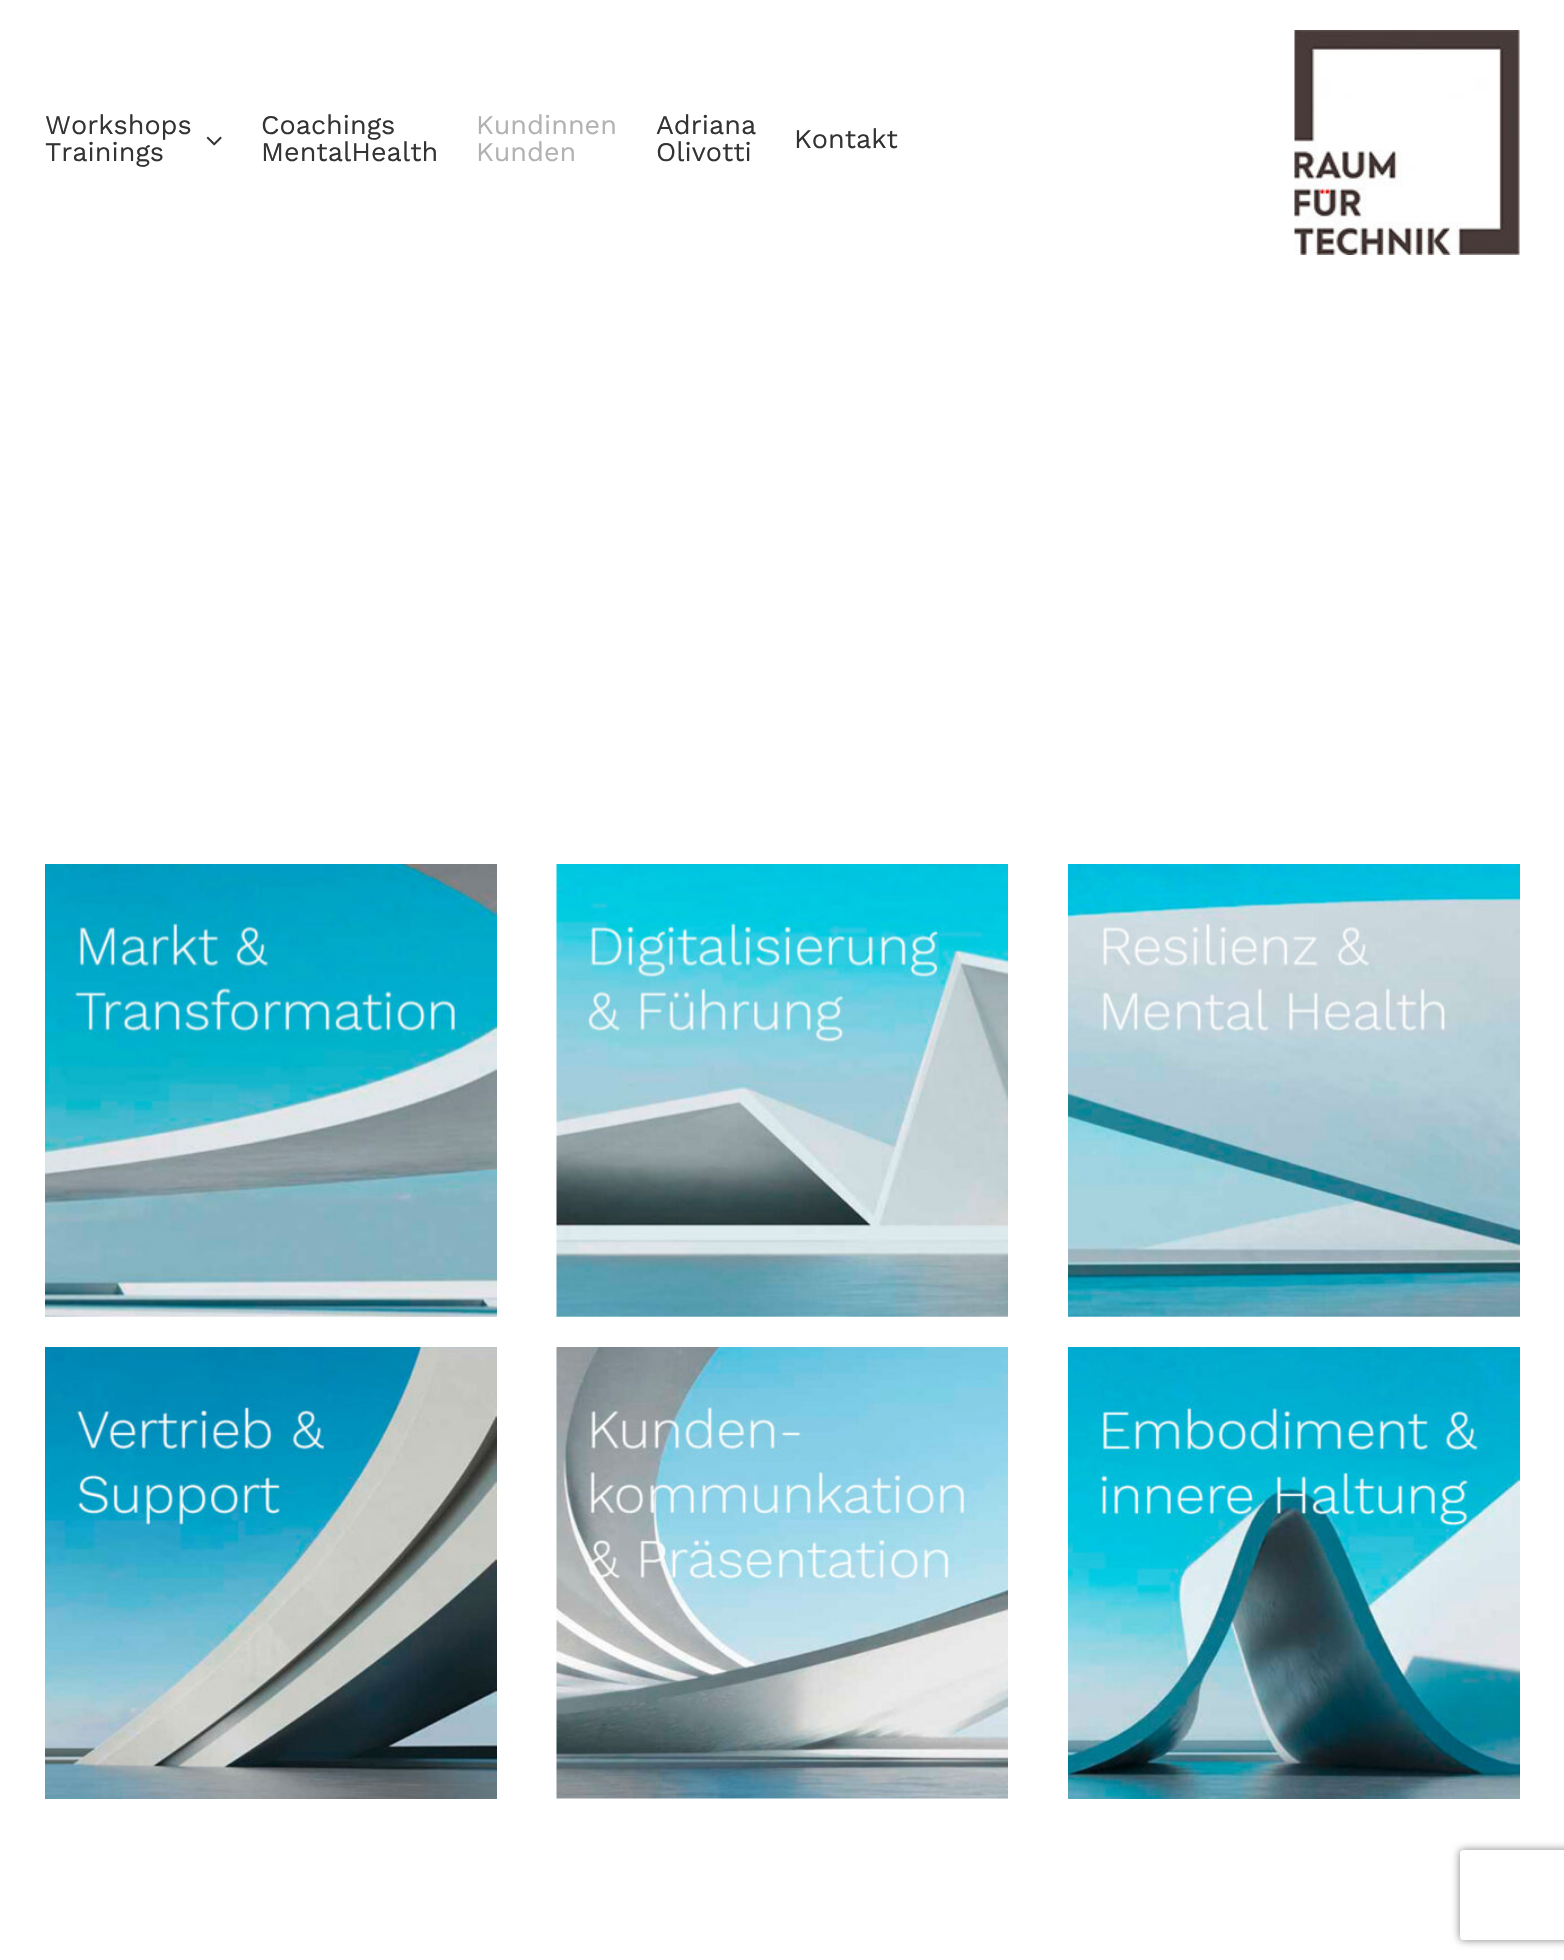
#include "include/core/SkBlurTypes.h"
#include "include/core/SkCanvas.h"
#include "include/core/SkData.h"
#include "include/core/SkFont.h"
#include "include/core/SkFontMgr.h"
#include "include/core/SkImage.h"
#include "include/core/SkMaskFilter.h"
#include "include/core/SkPaint.h"
#include "include/core/SkPathBuilder.h"
#include "include/core/SkTextBlob.h"
#include "include/effects/SkDashPathEffect.h"
#include "include/effects/SkGradientShader.h"
#include "include/utils/SkParsePath.h"

extern sk_sp<SkFontMgr> fontMgr;

static SkFont font(const char* family, int weight, float size, bool italic = false) {
    SkFontStyle style(weight, SkFontStyle::kNormal_Width,
        italic ? SkFontStyle::kItalic_Slant : SkFontStyle::kUpright_Slant);
    SkFont result(fontMgr->matchFamilyStyle(family, style), size);
    result.setSubpixel(true);
    return result;
}

static void drawLabel(SkCanvas* canvas, const char* s, float x, float y, const SkFont& font, SkColor color) {
    SkPaint ink(SkColor4f::FromColor(color));
    ink.setAntiAlias(true);
    canvas->drawString(s, x, y, font, ink);
}

static void drawPhoto(SkCanvas* canvas, const char* path, float x, float y, float w, float h) {
    auto image = SkImages::DeferredFromEncodedData(SkData::MakeFromFileName(path));
    canvas->drawImageRect(image, SkRect::MakeXYWH(x, y, w, h), SkSamplingOptions());
}

static SkPath parsePath(const char* data, bool evenOdd = false) {
    SkPath result = *SkParsePath::FromSVGString(data);
    if (evenOdd) result.setFillType(SkPathFillType::kEvenOdd);
    return result;
}

void draw(SkCanvas* canvas) {
    SkPaint paint;
    paint.setAntiAlias(true);
    canvas->clear(0xFFFFFFFF);
    SkFont font1 = font("Work Sans", 400, 27);
    drawLabel(canvas, "Workshops", 45, 134, font1, 0xFF333333);
    drawLabel(canvas, "Trainings", 45, 161, font1, 0xFF333333);
    drawPhoto(canvas, "assets/img1.png", 206, 136, 16, 10);
    drawLabel(canvas, "Coachings", 261, 134, font1, 0xFF333333);
    drawLabel(canvas, "MentalHealth", 261, 161, font1, 0xFF333333);
    drawLabel(canvas, "Kundinnen", 476, 134, font1, 0xFFB2B2B2);
    drawLabel(canvas, "Kunden", 476, 161, font1, 0xFFB2B2B2);
    drawLabel(canvas, "Adriana", 656, 134, font1, 0xFF333333);
    drawLabel(canvas, "Olivotti", 656, 161, font1, 0xFF333333);
    drawLabel(canvas, "Kontakt", 794, 148, font1, 0xFF333333);
    drawPhoto(canvas, "assets/img2.png", 1294, 30, 226, 225);
    drawPhoto(canvas, "assets/img3.png", 45, 864, 452, 453);
    drawPhoto(canvas, "assets/img4.png", 556, 864, 452, 453);
    drawPhoto(canvas, "assets/img5.png", 1068, 864, 452, 453);
    drawPhoto(canvas, "assets/img6.png", 45, 1347, 452, 452);
    drawPhoto(canvas, "assets/img7.png", 556, 1347, 452, 452);
    drawPhoto(canvas, "assets/img8.png", 1068, 1347, 452, 452);
    canvas->save();
    canvas->clipPath(parsePath("M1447 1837H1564V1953H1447ZM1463 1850H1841C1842.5 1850 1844 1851.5 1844 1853V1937C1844 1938.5 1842.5 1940 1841 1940H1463C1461.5 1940 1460 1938.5 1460 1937V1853C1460 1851.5 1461.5 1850 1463 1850Z", true), true);
    paint.setColor(0xFF808080);
    paint.setMaskFilter(SkMaskFilter::MakeBlur(kNormal_SkBlurStyle, 4));
    canvas->drawRoundRect(SkRect::MakeXYWH(1460, 1850, 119, 90), 3, 3, paint);
    paint.setMaskFilter(nullptr);
    canvas->restore();
}
